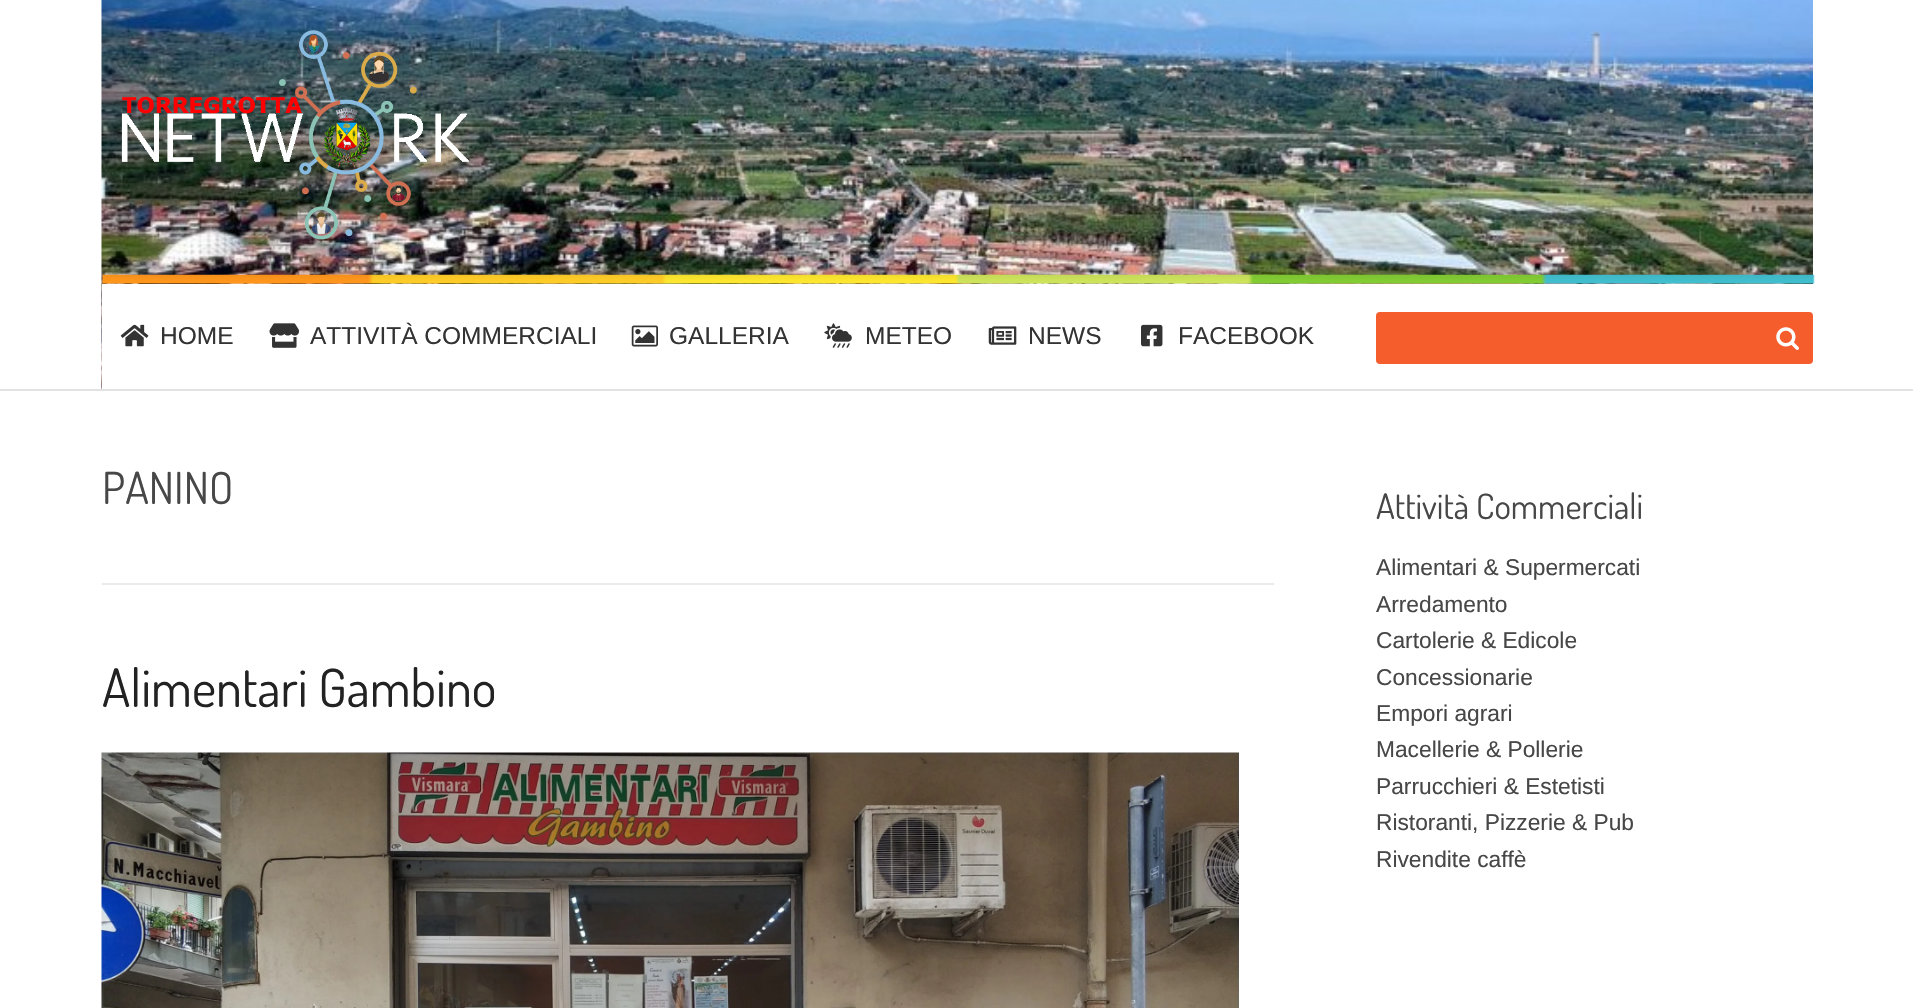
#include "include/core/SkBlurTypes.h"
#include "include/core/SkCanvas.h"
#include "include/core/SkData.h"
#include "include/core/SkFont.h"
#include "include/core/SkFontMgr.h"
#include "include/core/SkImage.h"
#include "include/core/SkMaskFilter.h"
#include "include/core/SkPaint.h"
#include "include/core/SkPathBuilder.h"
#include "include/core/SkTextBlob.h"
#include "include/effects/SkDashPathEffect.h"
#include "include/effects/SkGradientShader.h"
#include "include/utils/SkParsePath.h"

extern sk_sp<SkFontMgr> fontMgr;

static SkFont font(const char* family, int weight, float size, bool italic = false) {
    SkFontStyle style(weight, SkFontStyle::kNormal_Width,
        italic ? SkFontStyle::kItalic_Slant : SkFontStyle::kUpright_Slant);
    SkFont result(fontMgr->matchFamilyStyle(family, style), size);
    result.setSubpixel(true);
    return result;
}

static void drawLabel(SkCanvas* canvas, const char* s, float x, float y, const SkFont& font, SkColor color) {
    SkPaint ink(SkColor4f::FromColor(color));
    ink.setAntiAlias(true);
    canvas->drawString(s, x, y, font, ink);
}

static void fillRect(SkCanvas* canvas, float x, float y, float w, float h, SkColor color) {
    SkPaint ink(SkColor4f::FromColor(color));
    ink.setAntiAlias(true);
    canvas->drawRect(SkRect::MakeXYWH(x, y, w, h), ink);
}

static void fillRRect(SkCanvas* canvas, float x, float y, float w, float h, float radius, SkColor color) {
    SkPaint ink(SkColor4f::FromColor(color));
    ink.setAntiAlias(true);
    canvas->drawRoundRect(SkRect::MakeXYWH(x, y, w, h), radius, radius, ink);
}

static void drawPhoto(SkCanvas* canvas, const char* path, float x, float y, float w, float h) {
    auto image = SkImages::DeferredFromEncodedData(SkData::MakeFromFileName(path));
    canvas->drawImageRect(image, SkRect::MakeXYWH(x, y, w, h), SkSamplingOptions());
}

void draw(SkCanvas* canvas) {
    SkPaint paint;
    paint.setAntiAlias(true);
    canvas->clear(0xFFFFFFFF);
    drawPhoto(canvas, "assets/img1.png", 101, 0, 1712, 389);
    drawPhoto(canvas, "assets/img2.png", 121, 29, 348, 211);
    drawPhoto(canvas, "assets/img3.png", 102, 274, 1713, 10);
    fillRect(canvas, 0, 389, 1913, 2, 0xFFE2E2E2);
    fillRect(canvas, 102, 284, 1711, 105, 0xFFFFFFFF);
    drawPhoto(canvas, "assets/img4.png", 120, 324, 29, 23);
    SkFont font1 = font("Liberation Sans", 400, 24.5f);
    drawLabel(canvas, "HOME", 160, 344, font1, 0xFF333333);
    drawPhoto(canvas, "assets/img5.png", 269, 323, 31, 25);
    drawLabel(canvas, "ATTIVITÀ COMMERCIALI", 310, 344, font1, 0xFF333333);
    drawPhoto(canvas, "assets/img6.png", 631, 325, 27, 22);
    drawLabel(canvas, "GALLERIA", 669, 344, font1, 0xFF333333);
    drawPhoto(canvas, "assets/img7.png", 824, 323, 28, 25);
    drawLabel(canvas, "METEO", 865, 344, font1, 0xFF333333);
    drawPhoto(canvas, "assets/img8.png", 988, 326, 29, 19);
    drawLabel(canvas, "NEWS", 1028, 344, font1, 0xFF333333);
    drawPhoto(canvas, "assets/img9.png", 1141, 324, 22, 23);
    drawLabel(canvas, "FACEBOOK", 1178, 344, font1, 0xFF333333);
    fillRRect(canvas, 1376, 312, 437, 52, 4, 0xFFF55D2D);
    drawPhoto(canvas, "assets/img10.png", 1776, 327, 23, 23);
    fillRect(canvas, 102, 583, 1172, 2, 0xFFEAEAEA);
    SkFont font2 = font("Dosis", 400, 44);
    drawLabel(canvas, "PANINO", 102, 504, font2, 0xFF474747);
    SkFont font3 = font("Dosis", 400, 52.5f);
    drawLabel(canvas, "Alimentari Gambino", 102, 707, font3, 0xFF222222);
    drawPhoto(canvas, "assets/img11.png", 101, 752, 1138, 256);
    SkFont font4 = font("Dosis", 400, 35);
    drawLabel(canvas, "Attività Commerciali", 1376, 519, font4, 0xFF474747);
    SkFont font5 = font("Liberation Sans", 400, 22.75f);
    drawLabel(canvas, "Alimentari & Supermercati", 1376, 575, font5, 0xFF474747);
    drawLabel(canvas, "Arredamento", 1376, 612, font5, 0xFF474747);
    drawLabel(canvas, "Cartolerie & Edicole", 1376, 648, font5, 0xFF474747);
    drawLabel(canvas, "Concessionarie", 1376, 685, font5, 0xFF474747);
    drawLabel(canvas, "Empori agrari", 1376, 721, font5, 0xFF474747);
    drawLabel(canvas, "Macellerie & Pollerie", 1376, 757, font5, 0xFF474747);
    drawLabel(canvas, "Parrucchieri & Estetisti", 1376, 794, font5, 0xFF474747);
    drawLabel(canvas, "Ristoranti, Pizzerie & Pub", 1376, 830, font5, 0xFF474747);
    drawLabel(canvas, "Rivendite caffè", 1376, 867, font5, 0xFF474747);
}
